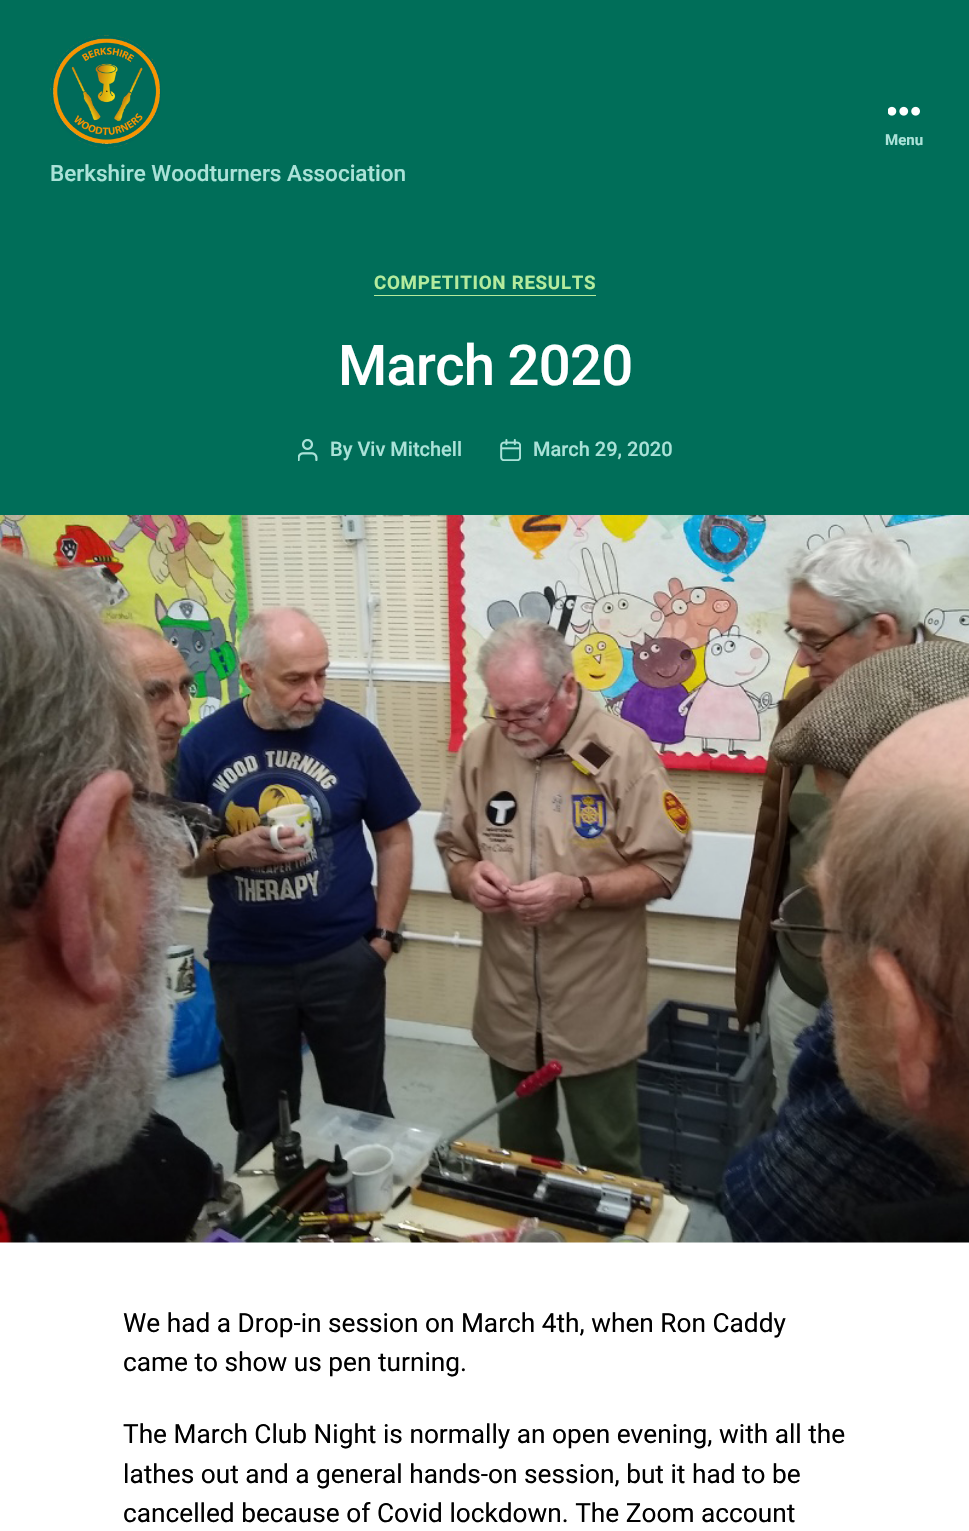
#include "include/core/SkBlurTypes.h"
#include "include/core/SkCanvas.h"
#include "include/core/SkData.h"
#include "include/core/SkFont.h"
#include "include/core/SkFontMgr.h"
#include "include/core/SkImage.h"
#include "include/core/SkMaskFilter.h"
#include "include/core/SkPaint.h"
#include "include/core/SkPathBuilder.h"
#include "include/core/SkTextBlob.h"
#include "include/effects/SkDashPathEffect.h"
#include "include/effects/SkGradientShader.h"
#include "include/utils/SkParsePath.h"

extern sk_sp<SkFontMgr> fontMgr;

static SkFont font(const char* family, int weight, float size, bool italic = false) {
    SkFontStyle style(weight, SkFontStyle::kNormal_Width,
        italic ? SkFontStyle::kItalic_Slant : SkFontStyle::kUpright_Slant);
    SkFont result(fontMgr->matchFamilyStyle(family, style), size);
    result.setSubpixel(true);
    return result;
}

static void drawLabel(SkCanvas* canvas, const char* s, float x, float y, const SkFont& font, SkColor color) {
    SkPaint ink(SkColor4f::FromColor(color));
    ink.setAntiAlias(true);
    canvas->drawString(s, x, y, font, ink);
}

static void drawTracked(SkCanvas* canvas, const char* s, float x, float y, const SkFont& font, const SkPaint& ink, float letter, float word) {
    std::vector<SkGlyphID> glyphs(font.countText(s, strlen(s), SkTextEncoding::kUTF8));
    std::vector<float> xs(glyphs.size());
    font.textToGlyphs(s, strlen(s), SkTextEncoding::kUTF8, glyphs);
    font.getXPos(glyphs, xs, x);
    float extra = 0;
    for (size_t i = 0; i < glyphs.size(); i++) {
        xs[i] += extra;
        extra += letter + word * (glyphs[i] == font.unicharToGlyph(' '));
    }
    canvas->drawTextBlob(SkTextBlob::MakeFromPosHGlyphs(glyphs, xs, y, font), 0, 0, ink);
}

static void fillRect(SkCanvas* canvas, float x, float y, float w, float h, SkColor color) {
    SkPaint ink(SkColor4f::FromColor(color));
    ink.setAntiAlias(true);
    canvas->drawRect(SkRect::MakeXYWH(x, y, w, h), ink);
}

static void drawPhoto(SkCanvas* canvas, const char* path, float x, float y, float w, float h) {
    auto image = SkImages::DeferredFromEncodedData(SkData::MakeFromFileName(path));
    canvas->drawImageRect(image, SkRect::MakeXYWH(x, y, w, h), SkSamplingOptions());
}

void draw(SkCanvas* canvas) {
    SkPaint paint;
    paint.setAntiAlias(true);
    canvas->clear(0xFFFFFFFF);
    fillRect(canvas, 0, 0, 969, 515, 0xFF006E59);
    drawPhoto(canvas, "assets/img1.png", 888, 106, 32, 10);
    SkFont font1 = font("Roboto", 700, 15);
    drawLabel(canvas, "Menu", 885, 145, font1, 0xFFAAE2D8);
    drawPhoto(canvas, "assets/img2.png", 50, 35, 111, 113);
    SkFont font2 = font("Roboto", 500, 22.5f);
    drawLabel(canvas, "Berkshire Woodturners Association", 50, 181, font2, 0xFFAAE2D8);
    fillRect(canvas, 374, 295, 222, 1, 0xFFB4EB9D);
    SkFont font3 = font("Roboto", 700, 18.75f);
    paint.setColor(0xFFB4EB9D);
    drawTracked(canvas, "COMPETITION RESULTS", 374, 289, font3, paint, 0.7f, 0);
    SkFont font4 = font("Roboto", 500, 56.25f);
    paint.setColor(0xFFFFFFFF);
    drawTracked(canvas, "March 2020", 338, 385, font4, paint, -0.75f, 0);
    drawPhoto(canvas, "assets/img3.png", 298, 439, 20, 22);
    SkFont font5 = font("Roboto", 500, 20);
    drawLabel(canvas, "By Viv Mitchell", 330, 456, font5, 0xFFAAE2D8);
    drawPhoto(canvas, "assets/img4.png", 500, 439, 21, 22);
    drawLabel(canvas, "March 29, 2020", 533, 456, font5, 0xFFAAE2D8);
    drawPhoto(canvas, "assets/img5.png", 0, 515, 969, 728);
    SkFont font6 = font("Roboto", 400, 26.25f);
    drawLabel(canvas, "We had a Drop-in session on March 4th, when Ron Caddy", 123, 1332, font6, 0xFF000000);
    drawLabel(canvas, "came to show us pen turning.", 123, 1371, font6, 0xFF000000);
    drawLabel(canvas, "The March Club Night is normally an open evening, with all the", 123, 1443, font6, 0xFF000000);
    drawLabel(canvas, "lathes out and a general hands-on session, but it had to be", 123, 1483, font6, 0xFF000000);
    drawLabel(canvas, "cancelled because of Covid lockdown. The Zoom account", 123, 1522, font6, 0xFF000000);
}
